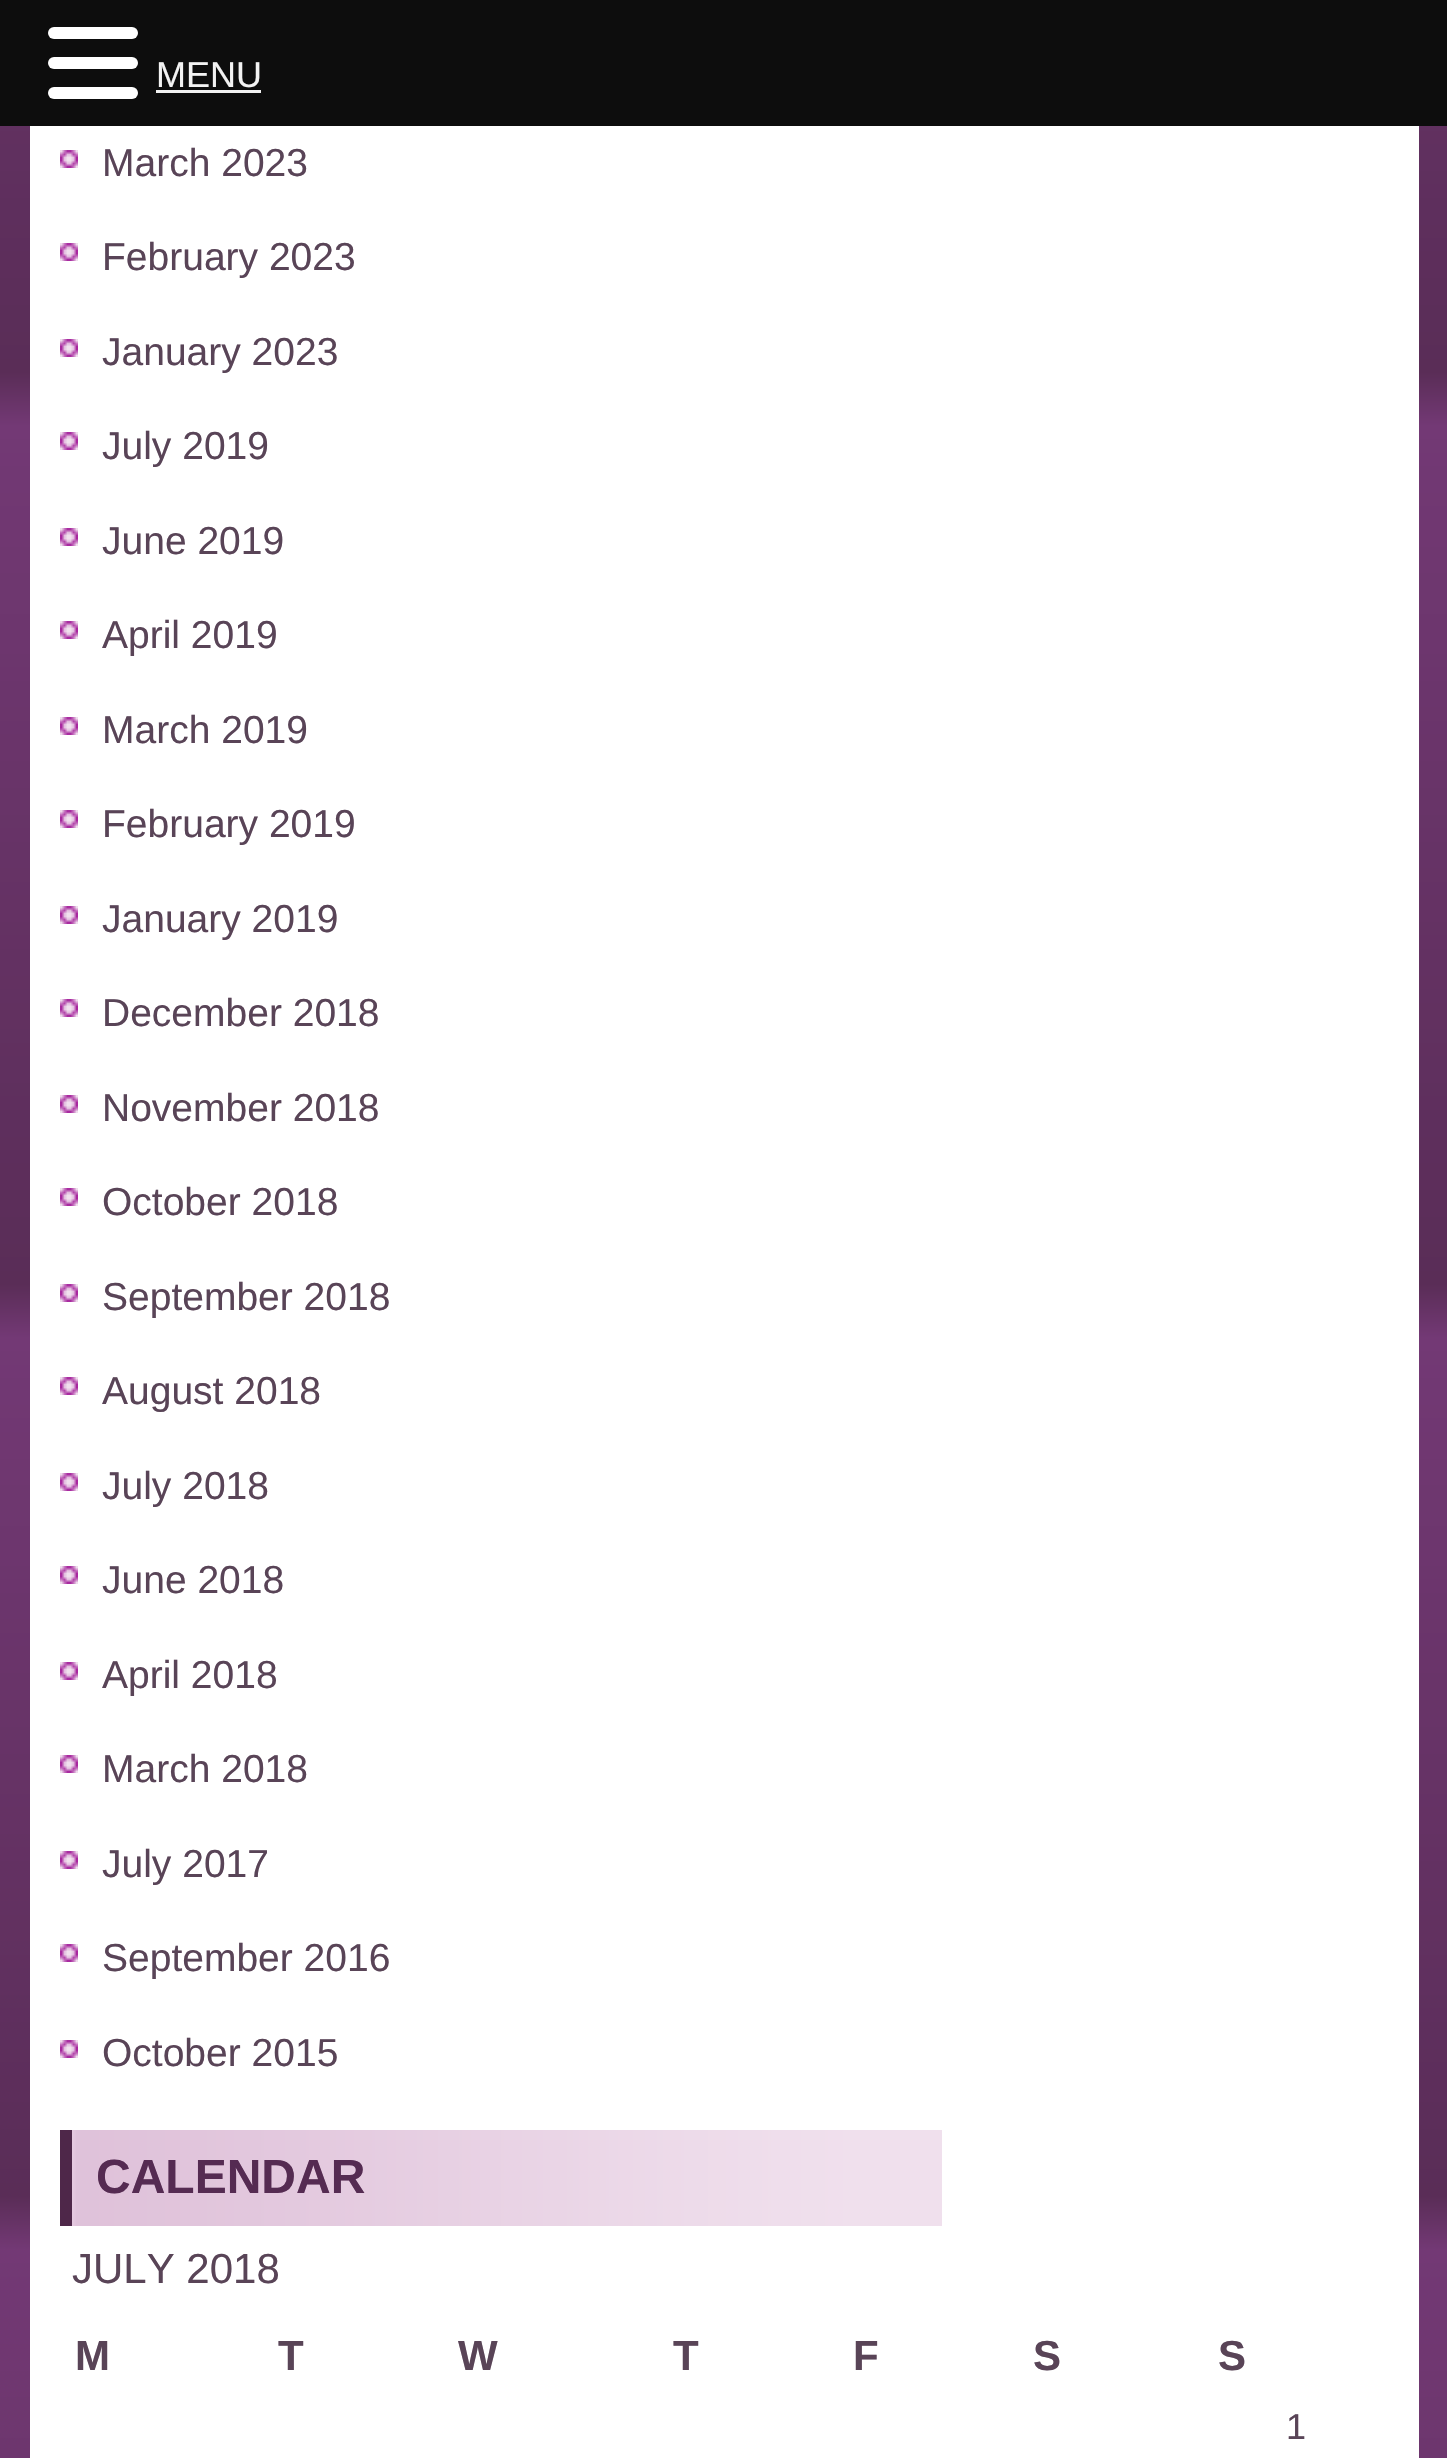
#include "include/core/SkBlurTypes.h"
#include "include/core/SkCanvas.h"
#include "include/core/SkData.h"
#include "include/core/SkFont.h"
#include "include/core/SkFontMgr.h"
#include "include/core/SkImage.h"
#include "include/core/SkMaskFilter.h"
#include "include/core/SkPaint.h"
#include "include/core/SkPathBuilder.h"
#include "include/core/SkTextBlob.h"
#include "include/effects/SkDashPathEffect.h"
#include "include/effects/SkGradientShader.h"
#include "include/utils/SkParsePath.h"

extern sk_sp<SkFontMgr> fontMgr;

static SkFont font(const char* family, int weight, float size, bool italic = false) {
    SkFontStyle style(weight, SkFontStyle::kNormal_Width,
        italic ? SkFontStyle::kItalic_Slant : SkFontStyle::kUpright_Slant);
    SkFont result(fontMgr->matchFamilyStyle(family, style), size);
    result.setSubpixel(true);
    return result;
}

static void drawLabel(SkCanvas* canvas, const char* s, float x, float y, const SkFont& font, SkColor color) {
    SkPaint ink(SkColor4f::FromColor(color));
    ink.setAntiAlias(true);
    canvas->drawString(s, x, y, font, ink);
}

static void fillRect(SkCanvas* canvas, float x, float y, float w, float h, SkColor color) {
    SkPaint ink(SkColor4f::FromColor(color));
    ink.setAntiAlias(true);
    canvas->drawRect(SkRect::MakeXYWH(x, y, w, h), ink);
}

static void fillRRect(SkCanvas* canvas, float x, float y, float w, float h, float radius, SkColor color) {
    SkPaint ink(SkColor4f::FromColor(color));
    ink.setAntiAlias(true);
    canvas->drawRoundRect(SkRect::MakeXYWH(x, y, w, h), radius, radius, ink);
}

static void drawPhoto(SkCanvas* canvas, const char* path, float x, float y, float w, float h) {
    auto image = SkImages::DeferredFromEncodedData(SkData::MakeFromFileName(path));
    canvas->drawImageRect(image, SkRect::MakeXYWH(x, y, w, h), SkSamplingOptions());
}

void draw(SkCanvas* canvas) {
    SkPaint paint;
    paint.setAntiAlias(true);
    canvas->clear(0xFFFFFFFF);
    drawPhoto(canvas, "assets/img1.png", 0, 126, 1447, 2332);
    fillRect(canvas, 0, 0, 1447, 126, 0xFF0D0D0D);
    fillRRect(canvas, 48, 27, 90, 12, 6, 0xFFFFFFFF);
    fillRRect(canvas, 48, 57, 90, 12, 6, 0xFFFFFFFF);
    fillRRect(canvas, 48, 87, 90, 12, 6, 0xFFFFFFFF);
    SkFont font1 = font("Liberation Sans", 400, 36);
    drawLabel(canvas, "MENU", 156, 87, font1, 0xFFF2F2F2);
    fillRect(canvas, 156, 90, 105, 3, 0xFFF2F2F2);
    fillRect(canvas, 30, 126, 1389, 2332, 0xFFFFFFFF);
    drawPhoto(canvas, "assets/img2.png", 60, 150, 18, 18);
    SkFont font2 = font("Liberation Sans", 400, 39);
    drawLabel(canvas, "March 2023", 102, 176, font2, 0xFF594457);
    drawPhoto(canvas, "assets/img2.png", 60, 243, 18, 18);
    drawLabel(canvas, "February 2023", 102, 270, font2, 0xFF594457);
    drawPhoto(canvas, "assets/img2.png", 60, 339, 18, 18);
    drawLabel(canvas, "January 2023", 102, 365, font2, 0xFF594457);
    drawPhoto(canvas, "assets/img2.png", 60, 432, 18, 18);
    drawLabel(canvas, "July 2019", 102, 459, font2, 0xFF594457);
    drawPhoto(canvas, "assets/img2.png", 60, 528, 18, 18);
    drawLabel(canvas, "June 2019", 102, 554, font2, 0xFF594457);
    drawPhoto(canvas, "assets/img2.png", 60, 621, 18, 18);
    drawLabel(canvas, "April 2019", 102, 648, font2, 0xFF594457);
    drawPhoto(canvas, "assets/img2.png", 60, 717, 18, 18);
    drawLabel(canvas, "March 2019", 102, 743, font2, 0xFF594457);
    drawPhoto(canvas, "assets/img2.png", 60, 810, 18, 18);
    drawLabel(canvas, "February 2019", 102, 837, font2, 0xFF594457);
    drawPhoto(canvas, "assets/img2.png", 60, 906, 18, 18);
    drawLabel(canvas, "January 2019", 102, 932, font2, 0xFF594457);
    drawPhoto(canvas, "assets/img2.png", 60, 999, 18, 18);
    drawLabel(canvas, "December 2018", 102, 1026, font2, 0xFF594457);
    drawPhoto(canvas, "assets/img2.png", 60, 1095, 18, 18);
    drawLabel(canvas, "November 2018", 102, 1121, font2, 0xFF594457);
    drawPhoto(canvas, "assets/img2.png", 60, 1188, 18, 18);
    drawLabel(canvas, "October 2018", 102, 1215, font2, 0xFF594457);
    drawPhoto(canvas, "assets/img2.png", 60, 1284, 18, 18);
    drawLabel(canvas, "September 2018", 102, 1310, font2, 0xFF594457);
    drawPhoto(canvas, "assets/img2.png", 60, 1377, 18, 18);
    drawLabel(canvas, "August 2018", 102, 1404, font2, 0xFF594457);
    drawPhoto(canvas, "assets/img2.png", 60, 1473, 18, 18);
    drawLabel(canvas, "July 2018", 102, 1499, font2, 0xFF594457);
    drawPhoto(canvas, "assets/img2.png", 60, 1566, 18, 18);
    drawLabel(canvas, "June 2018", 102, 1593, font2, 0xFF594457);
    drawPhoto(canvas, "assets/img2.png", 60, 1662, 18, 18);
    drawLabel(canvas, "April 2018", 102, 1688, font2, 0xFF594457);
    drawPhoto(canvas, "assets/img2.png", 60, 1755, 18, 18);
    drawLabel(canvas, "March 2018", 102, 1782, font2, 0xFF594457);
    drawPhoto(canvas, "assets/img2.png", 60, 1851, 18, 18);
    drawLabel(canvas, "July 2017", 102, 1877, font2, 0xFF594457);
    drawPhoto(canvas, "assets/img2.png", 60, 1944, 18, 18);
    drawLabel(canvas, "September 2016", 102, 1971, font2, 0xFF594457);
    drawPhoto(canvas, "assets/img2.png", 60, 2040, 18, 18);
    drawLabel(canvas, "October 2015", 102, 2066, font2, 0xFF594457);
    drawPhoto(canvas, "assets/img3.png", 72, 2130, 870, 96);
    fillRect(canvas, 60, 2130, 12, 96, 0xFF4E2749);
    SkFont font3 = font("Liberation Sans", 700, 48);
    drawLabel(canvas, "CALENDAR", 96, 2193, font3, 0xFF552B52);
    SkFont font4 = font("Liberation Sans", 400, 42);
    drawLabel(canvas, "JULY 2018", 72, 2283, font4, 0xFF594457);
    SkFont font5 = font("Liberation Sans", 700, 42);
    drawLabel(canvas, "M", 75, 2370, font5, 0xFF594457);
    drawLabel(canvas, "T", 278, 2370, font5, 0xFF594457);
    drawLabel(canvas, "W", 458, 2370, font5, 0xFF594457);
    drawLabel(canvas, "T", 673, 2370, font5, 0xFF594457);
    drawLabel(canvas, "F", 853, 2370, font5, 0xFF594457);
    drawLabel(canvas, "S", 1033, 2370, font5, 0xFF594457);
    drawLabel(canvas, "S", 1218, 2370, font5, 0xFF594457);
    drawLabel(canvas, "1", 1286, 2439, font1, 0xFF594457);
}
